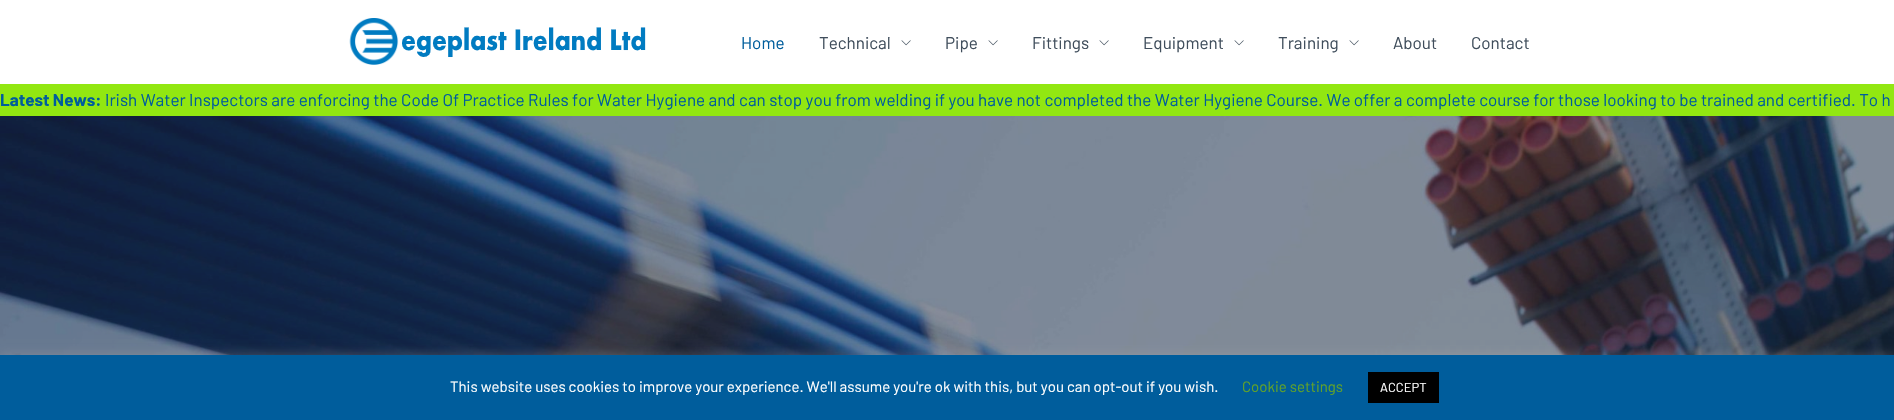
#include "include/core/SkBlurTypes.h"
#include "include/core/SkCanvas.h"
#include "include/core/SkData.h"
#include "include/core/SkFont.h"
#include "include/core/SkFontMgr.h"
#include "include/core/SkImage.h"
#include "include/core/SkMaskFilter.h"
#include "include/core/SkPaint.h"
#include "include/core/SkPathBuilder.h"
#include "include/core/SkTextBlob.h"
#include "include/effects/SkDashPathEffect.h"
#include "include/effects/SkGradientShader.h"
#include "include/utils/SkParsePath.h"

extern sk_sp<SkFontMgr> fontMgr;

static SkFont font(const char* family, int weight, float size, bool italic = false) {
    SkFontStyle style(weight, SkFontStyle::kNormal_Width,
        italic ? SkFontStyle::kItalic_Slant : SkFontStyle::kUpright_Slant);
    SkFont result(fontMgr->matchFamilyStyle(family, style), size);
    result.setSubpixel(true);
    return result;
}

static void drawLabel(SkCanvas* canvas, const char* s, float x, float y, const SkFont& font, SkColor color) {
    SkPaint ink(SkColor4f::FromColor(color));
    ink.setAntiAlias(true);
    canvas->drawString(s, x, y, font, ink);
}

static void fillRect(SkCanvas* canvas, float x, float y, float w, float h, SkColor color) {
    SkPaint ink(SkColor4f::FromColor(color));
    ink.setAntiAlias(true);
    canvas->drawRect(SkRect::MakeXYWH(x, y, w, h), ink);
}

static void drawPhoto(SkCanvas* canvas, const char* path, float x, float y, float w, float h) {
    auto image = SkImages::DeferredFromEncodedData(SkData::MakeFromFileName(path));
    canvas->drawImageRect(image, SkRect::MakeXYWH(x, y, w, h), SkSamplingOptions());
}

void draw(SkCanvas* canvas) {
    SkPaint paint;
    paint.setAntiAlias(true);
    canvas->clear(0xFFFFFFFF);
    drawPhoto(canvas, "assets/img1.png", 349, 18, 297, 47);
    SkFont font1 = font("Barlow", 400, 17);
    drawLabel(canvas, "Home", 741, 49, font1, 0xFF005D9C);
    drawLabel(canvas, "Technical", 819, 49, font1, 0xFF404E5C);
    drawPhoto(canvas, "assets/img2.png", 901, 40, 10, 6);
    drawLabel(canvas, "Pipe", 945, 49, font1, 0xFF404E5C);
    drawPhoto(canvas, "assets/img2.png", 988, 40, 10, 6);
    drawLabel(canvas, "Fittings", 1032, 49, font1, 0xFF404E5C);
    drawPhoto(canvas, "assets/img2.png", 1099, 40, 10, 6);
    drawLabel(canvas, "Equipment", 1143, 49, font1, 0xFF404E5C);
    drawPhoto(canvas, "assets/img2.png", 1234, 40, 10, 6);
    drawLabel(canvas, "Training", 1278, 49, font1, 0xFF404E5C);
    drawPhoto(canvas, "assets/img2.png", 1349, 40, 10, 6);
    drawLabel(canvas, "About", 1393, 49, font1, 0xFF404E5C);
    drawLabel(canvas, "Contact", 1471, 49, font1, 0xFF404E5C);
    fillRect(canvas, 0, 84, 1894, 32, 0xFF92E711);
    SkFont font2 = font("Barlow", 700, 17);
    drawLabel(canvas, "Latest News:", 0, 106, font2, 0xFF005D9C);
    drawLabel(canvas, "Irish Water Inspectors are enforcing the Code Of Practice Rules for Water Hygiene and can stop you from welding if you have not completed the Water Hygiene Course. We offer a complete course for those looking to be trained and certified. To h", 105, 106, font1, 0xFF005D9C);
    drawPhoto(canvas, "assets/img3.png", 0, 116, 1894, 239);
    paint.setColor(0x4DACABAB);
    paint.setMaskFilter(SkMaskFilter::MakeBlur(kNormal_SkBlurStyle, 5));
    canvas->drawRect(SkRect::MakeXYWH(0, 354, 1894, 65), paint);
    paint.setMaskFilter(nullptr);
    fillRect(canvas, 0, 355, 1894, 65, 0xFF005D9C);
    SkFont font3 = font("Barlow", 400, 15);
    drawLabel(canvas, "This website uses cookies to improve your experience. We'll assume you're ok with this, but you can opt-out if you wish.", 450, 392, font3, 0xFFFFFFFF);
    drawLabel(canvas, "Cookie settings", 1242, 392, font3, 0xFF62A329);
    fillRect(canvas, 1368, 372, 71, 31, 0xFF000000);
    SkFont font4 = font("Barlow", 400, 13);
    drawLabel(canvas, "ACCEPT", 1380, 392, font4, 0xFFFFFFFF);
}
